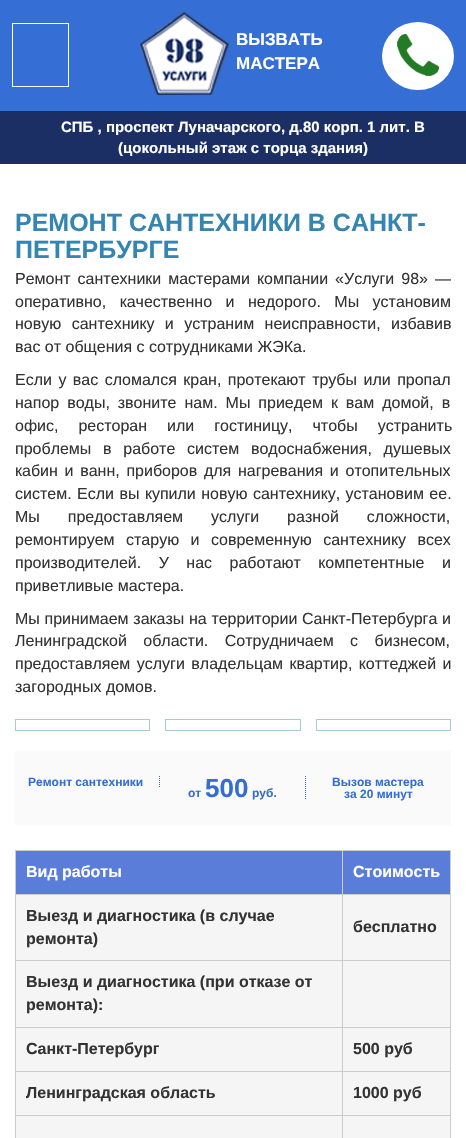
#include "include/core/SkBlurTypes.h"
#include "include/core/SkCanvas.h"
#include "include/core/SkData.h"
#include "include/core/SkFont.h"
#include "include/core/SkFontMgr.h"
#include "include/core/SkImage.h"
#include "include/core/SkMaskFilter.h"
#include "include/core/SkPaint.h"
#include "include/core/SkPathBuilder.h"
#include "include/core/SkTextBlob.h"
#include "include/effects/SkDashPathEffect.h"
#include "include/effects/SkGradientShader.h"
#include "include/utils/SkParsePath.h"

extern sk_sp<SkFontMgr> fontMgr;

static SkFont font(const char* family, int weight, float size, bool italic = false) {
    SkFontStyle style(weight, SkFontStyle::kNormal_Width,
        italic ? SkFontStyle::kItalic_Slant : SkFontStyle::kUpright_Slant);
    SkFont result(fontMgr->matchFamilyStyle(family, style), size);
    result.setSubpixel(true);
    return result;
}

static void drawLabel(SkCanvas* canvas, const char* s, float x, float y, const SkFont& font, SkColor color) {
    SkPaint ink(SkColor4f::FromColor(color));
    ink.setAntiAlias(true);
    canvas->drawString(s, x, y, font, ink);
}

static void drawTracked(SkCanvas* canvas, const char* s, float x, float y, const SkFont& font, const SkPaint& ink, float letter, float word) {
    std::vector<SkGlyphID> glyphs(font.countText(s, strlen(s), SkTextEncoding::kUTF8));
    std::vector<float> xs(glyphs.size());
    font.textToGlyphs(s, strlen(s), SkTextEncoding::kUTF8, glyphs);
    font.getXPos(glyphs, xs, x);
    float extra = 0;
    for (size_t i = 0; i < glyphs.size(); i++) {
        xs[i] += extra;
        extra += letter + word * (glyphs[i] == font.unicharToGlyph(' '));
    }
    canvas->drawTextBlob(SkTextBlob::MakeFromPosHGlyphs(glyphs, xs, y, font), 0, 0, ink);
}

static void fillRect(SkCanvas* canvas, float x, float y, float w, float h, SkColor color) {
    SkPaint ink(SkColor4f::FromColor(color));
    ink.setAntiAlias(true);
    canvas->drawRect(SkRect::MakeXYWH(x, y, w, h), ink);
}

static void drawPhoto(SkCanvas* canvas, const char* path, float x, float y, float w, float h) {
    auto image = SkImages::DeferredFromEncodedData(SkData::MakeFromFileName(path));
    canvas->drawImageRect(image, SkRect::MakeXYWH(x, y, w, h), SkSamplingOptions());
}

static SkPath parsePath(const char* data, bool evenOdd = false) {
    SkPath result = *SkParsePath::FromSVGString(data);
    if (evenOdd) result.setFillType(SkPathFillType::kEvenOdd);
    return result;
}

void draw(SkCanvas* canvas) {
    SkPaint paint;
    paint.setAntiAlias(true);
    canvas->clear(0xFFFFFFFF);
    fillRect(canvas, 0, 0, 466, 111, 0xFF356ED5);
    paint.setStroke(true);
    paint.setStrokeWidth(1);
    paint.setColor(0xFFFFFFFF);
    canvas->drawRect(SkRect::MakeXYWH(12.5f, 23.5f, 56, 63), paint);
    drawPhoto(canvas, "assets/img1.png", 140, 12, 89, 83);
    SkFont font1 = font("Liberation Sans", 700, 17);
    drawLabel(canvas, "ВЫЗВАТЬ", 236, 45, font1, 0xFFFFFFFF);
    drawLabel(canvas, "МАСТЕРА", 236, 69, font1, 0xFFFFFFFF);
    paint.setStroke(false);
    canvas->drawOval(SkRect::MakeXYWH(382, 22, 72, 68), paint);
    drawPhoto(canvas, "assets/img2.png", 397, 34, 42, 42);
    fillRect(canvas, 0, 111, 466, 53, 0xFF1B2F64);
    SkFont font2 = font("Liberation Sans", 700, 15);
    drawLabel(canvas, "СПБ , проспект Луначарского, д.80 корп. 1 лит. В", 61, 132, font2, 0xFFFFFFFF);
    drawLabel(canvas, "(цокольный этаж с торца здания)", 118, 153, font2, 0xFFFFFFFF);
    SkFont font3 = font("Liberation Sans", 700, 25);
    drawLabel(canvas, "РЕМОНТ САНТЕХНИКИ В САНКТ-", 15, 231, font3, 0xFF3485B0);
    drawLabel(canvas, "ПЕТЕРБУРГЕ", 15, 258, font3, 0xFF3485B0);
    SkFont font4 = font("Liberation Sans", 400, 16);
    paint.setColor(0xFF333333);
    drawTracked(canvas, "Ремонт сантехники мастерами компании «Услуги 98» —", 15, 284, font4, paint, 0, 2.5f);
    drawTracked(canvas, "оперативно, качественно и недорого. Мы установим", 15, 307, font4, paint, 0, 9);
    drawTracked(canvas, "новую сантехнику и устраним неисправности, избавив", 15, 329, font4, paint, 0, 6);
    drawLabel(canvas, "вас от общения с сотрудниками ЖЭКа.", 15, 352, font4, 0xFF333333);
    drawTracked(canvas, "Если у вас сломался кран, протекают трубы или пропал", 15, 385, font4, paint, 0, 2);
    drawTracked(canvas, "напор воды, звоните нам. Мы приедем к вам домой, в", 15, 408, font4, paint, 0, 3.5f);
    drawTracked(canvas, "офис, ресторан или гостиницу, чтобы устранить", 15, 431, font4, paint, 0, 15.5f);
    drawTracked(canvas, "проблемы в работе систем водоснабжения, душевых", 15, 454, font4, paint, 0, 7.25f);
    drawTracked(canvas, "кабин и ванн, приборов для нагревания и отопительных", 15, 476, font4, paint, 0, 2.25f);
    drawTracked(canvas, "систем. Если вы купили новую сантехнику, установим ее.", 15, 499, font4, paint, 0, 1);
    drawTracked(canvas, "Мы предоставляем услуги разной сложности,", 15, 522, font4, paint, 0, 23.5f);
    drawTracked(canvas, "ремонтируем старую и современную сантехнику всех", 15, 545, font4, paint, 0, 7);
    drawTracked(canvas, "производителей. У нас работают компетентные и", 15, 568, font4, paint, 0, 13);
    drawLabel(canvas, "приветливые мастера.", 15, 591, font4, 0xFF333333);
    drawTracked(canvas, "Мы принимаем заказы на территории Санкт-Петербурга и", 15, 624, font4, paint, 0, 0.25f);
    drawTracked(canvas, "Ленинградской области. Сотрудничаем с бизнесом,", 15, 646, font4, paint, 0, 12);
    drawTracked(canvas, "предоставляем услуги владельцам квартир, коттеджей и", 15, 669, font4, paint, 0, 2);
    drawLabel(canvas, "загородных домов.", 15, 692, font4, 0xFF333333);
    paint.setStroke(true);
    paint.setColor(0xFFA6C9DC);
    canvas->drawRect(SkRect::MakeXYWH(15.5f, 719.5f, 134, 11), paint);
    canvas->drawRect(SkRect::MakeXYWH(165.5f, 719.5f, 135, 11), paint);
    canvas->drawRect(SkRect::MakeXYWH(316.5f, 719.5f, 134, 11), paint);
    fillRect(canvas, 15, 751, 436, 74, 0xFFFAFAFA);
    paint.setColor(0xFF346ED2);
    paint.setPathEffect(SkDashPathEffect::Make({{1, 1}}, 0));
    canvas->drawPath(parsePath("M159.5 776V788"), paint);
    paint.setPathEffect(nullptr);
    SkFont font5 = font("Liberation Sans", 700, 12);
    drawLabel(canvas, "Ремонт сантехники", 28, 786, font5, 0xFF346ED2);
    paint.setPathEffect(SkDashPathEffect::Make({{1, 1}}, 0));
    canvas->drawPath(parsePath("M305.5 776V800"), paint);
    paint.setPathEffect(nullptr);
    drawLabel(canvas, "от", 188, 797, font5, 0xFF346ED2);
    SkFont font6 = font("Liberation Sans", 700, 26);
    drawLabel(canvas, "500", 205, 797, font6, 0xFF346ED2);
    drawLabel(canvas, "руб.", 252, 797, font5, 0xFF346ED2);
    drawLabel(canvas, "Вызов мастера", 332, 786, font5, 0xFF346ED2);
    drawLabel(canvas, "за 20 минут", 344, 798, font5, 0xFF346ED2);
    fillRect(canvas, 16, 851, 434, 43, 0xFF597DD8);
    fillRect(canvas, 342, 850, 109, 1, 0xFFCCCCCC);
    fillRect(canvas, 342, 894, 109, 1, 0xFFCCCCCC);
    fillRect(canvas, 16, 895, 434, 65, 0xFFF5F5F5);
    fillRect(canvas, 342, 960, 109, 1, 0xFFCCCCCC);
    fillRect(canvas, 16, 961, 434, 66, 0xFFF5F5F5);
    fillRect(canvas, 342, 1027, 109, 1, 0xFFCCCCCC);
    fillRect(canvas, 16, 1028, 434, 43, 0xFFF5F5F5);
    fillRect(canvas, 342, 1071, 109, 1, 0xFFCCCCCC);
    fillRect(canvas, 16, 1072, 434, 43, 0xFFF5F5F5);
    fillRect(canvas, 342, 1115, 109, 1, 0xFFCCCCCC);
    fillRect(canvas, 16, 1116, 434, 22, 0xFFF5F5F5);
    fillRect(canvas, 342, 1115, 1, 23, 0xFFCCCCCC);
    fillRect(canvas, 15, 1115, 328, 1, 0xFFCCCCCC);
    fillRect(canvas, 342, 1071, 1, 45, 0xFFCCCCCC);
    fillRect(canvas, 15, 1071, 328, 1, 0xFFCCCCCC);
    fillRect(canvas, 342, 1027, 1, 45, 0xFFCCCCCC);
    fillRect(canvas, 15, 1027, 328, 1, 0xFFCCCCCC);
    fillRect(canvas, 342, 960, 1, 68, 0xFFCCCCCC);
    fillRect(canvas, 15, 960, 328, 1, 0xFFCCCCCC);
    fillRect(canvas, 342, 894, 1, 67, 0xFFCCCCCC);
    fillRect(canvas, 15, 894, 328, 1, 0xFFCCCCCC);
    fillRect(canvas, 342, 850, 1, 45, 0xFFCCCCCC);
    fillRect(canvas, 15, 850, 328, 1, 0xFFCCCCCC);
    fillRect(canvas, 15, 1115, 1, 23, 0xFFCCCCCC);
    fillRect(canvas, 15, 1071, 1, 45, 0xFFCCCCCC);
    fillRect(canvas, 15, 1027, 1, 45, 0xFFCCCCCC);
    fillRect(canvas, 15, 960, 1, 68, 0xFFCCCCCC);
    fillRect(canvas, 15, 894, 1, 67, 0xFFCCCCCC);
    fillRect(canvas, 15, 850, 1, 45, 0xFFCCCCCC);
    SkFont font7 = font("Liberation Sans", 700, 16);
    drawLabel(canvas, "Вид работы", 26, 877, font7, 0xFFFFFFFF);
    fillRect(canvas, 450, 1115, 1, 23, 0xFFCCCCCC);
    fillRect(canvas, 450, 1071, 1, 45, 0xFFCCCCCC);
    fillRect(canvas, 450, 1027, 1, 45, 0xFFCCCCCC);
    fillRect(canvas, 450, 960, 1, 68, 0xFFCCCCCC);
    fillRect(canvas, 450, 894, 1, 67, 0xFFCCCCCC);
    fillRect(canvas, 450, 850, 1, 45, 0xFFCCCCCC);
    drawLabel(canvas, "Стоимость", 353, 877, font7, 0xFFFFFFFF);
    drawLabel(canvas, "Выезд и диагностика (в случае", 26, 921, font7, 0xFF333333);
    drawLabel(canvas, "ремонта)", 26, 944, font7, 0xFF333333);
    drawLabel(canvas, "бесплатно", 353, 932, font7, 0xFF333333);
    drawLabel(canvas, "Выезд и диагностика (при отказе от", 26, 987, font7, 0xFF333333);
    drawLabel(canvas, "ремонта):", 26, 1010, font7, 0xFF333333);
    drawLabel(canvas, "Санкт-Петербург", 26, 1054, font7, 0xFF333333);
    drawLabel(canvas, "500 руб", 353, 1054, font7, 0xFF333333);
    drawLabel(canvas, "Ленинградская область", 26, 1098, font7, 0xFF333333);
    drawLabel(canvas, "1000 руб", 353, 1098, font7, 0xFF333333);
}
